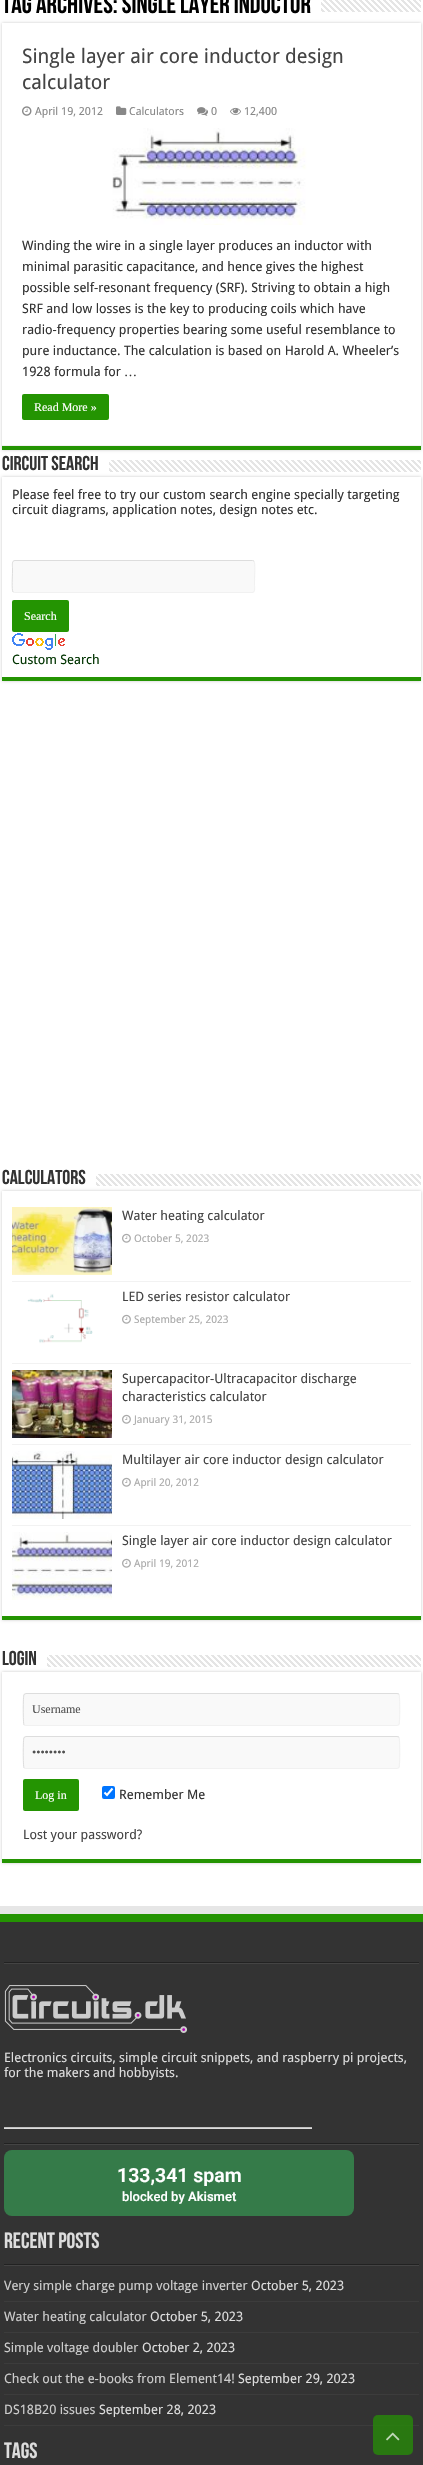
#include "include/core/SkBlurTypes.h"
#include "include/core/SkCanvas.h"
#include "include/core/SkData.h"
#include "include/core/SkFont.h"
#include "include/core/SkFontMgr.h"
#include "include/core/SkImage.h"
#include "include/core/SkMaskFilter.h"
#include "include/core/SkPaint.h"
#include "include/core/SkPathBuilder.h"
#include "include/core/SkTextBlob.h"
#include "include/effects/SkDashPathEffect.h"
#include "include/effects/SkGradientShader.h"
#include "include/utils/SkParsePath.h"

extern sk_sp<SkFontMgr> fontMgr;

static SkFont font(const char* family, int weight, float size, bool italic = false) {
    SkFontStyle style(weight, SkFontStyle::kNormal_Width,
        italic ? SkFontStyle::kItalic_Slant : SkFontStyle::kUpright_Slant);
    SkFont result(fontMgr->matchFamilyStyle(family, style), size);
    result.setSubpixel(true);
    return result;
}

static void drawLabel(SkCanvas* canvas, const char* s, float x, float y, const SkFont& font, SkColor color) {
    SkPaint ink(SkColor4f::FromColor(color));
    ink.setAntiAlias(true);
    canvas->drawString(s, x, y, font, ink);
}

static void fillRect(SkCanvas* canvas, float x, float y, float w, float h, SkColor color) {
    SkPaint ink(SkColor4f::FromColor(color));
    ink.setAntiAlias(true);
    canvas->drawRect(SkRect::MakeXYWH(x, y, w, h), ink);
}

static void fillRRect(SkCanvas* canvas, float x, float y, float w, float h, float radius, SkColor color) {
    SkPaint ink(SkColor4f::FromColor(color));
    ink.setAntiAlias(true);
    canvas->drawRoundRect(SkRect::MakeXYWH(x, y, w, h), radius, radius, ink);
}

static void drawPhoto(SkCanvas* canvas, const char* path, float x, float y, float w, float h) {
    auto image = SkImages::DeferredFromEncodedData(SkData::MakeFromFileName(path));
    canvas->drawImageRect(image, SkRect::MakeXYWH(x, y, w, h), SkSamplingOptions());
}

static SkPath parsePath(const char* data, bool evenOdd = false) {
    SkPath result = *SkParsePath::FromSVGString(data);
    if (evenOdd) result.setFillType(SkPathFillType::kEvenOdd);
    return result;
}

void draw(SkCanvas* canvas) {
    SkPaint paint;
    paint.setAntiAlias(true);
    canvas->clear(0xFFFFFFFF);
    SkFont font1 = font("Bebas Neue", 700, 26);
    drawLabel(canvas, "Tag Archives: Single layer inductor", 2, 13, font1, 0xFF000000);
    drawPhoto(canvas, "assets/img1.png", 321, 0, 100, 12);
    canvas->save();
    canvas->clipPath(parsePath("M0 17H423V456H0ZM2 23H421V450H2Z", true), true);
    paint.setColor(0xFFCACACA);
    paint.setMaskFilter(SkMaskFilter::MakeBlur(kNormal_SkBlurStyle, 1.5f));
    canvas->drawRect(SkRect::MakeXYWH(2, 23, 419, 427), paint);
    paint.setMaskFilter(nullptr);
    canvas->restore();
    fillRect(canvas, 2, 446, 419, 4, 0xFF249402);
    fillRect(canvas, 2, 445, 419, 1, 0xFFF2F2F2);
    SkFont font2 = font("Droid Sans", 400, 20);
    drawLabel(canvas, "Single layer air core inductor design", 22, 63, font2, 0xFF444444);
    drawLabel(canvas, "calculator", 22, 89, font2, 0xFF444444);
    drawPhoto(canvas, "assets/img2.png", 22, 106, 10, 10);
    SkFont font3 = font("Droid Sans", 400, 11);
    drawLabel(canvas, "April 19, 2012", 35, 115, font3, 0xFF888888);
    drawPhoto(canvas, "assets/img3.png", 116, 106, 11, 9);
    drawLabel(canvas, "Calculators", 129, 115, font3, 0xFF888888);
    drawPhoto(canvas, "assets/img4.png", 197, 107, 11, 9);
    drawLabel(canvas, "0", 211, 115, font3, 0xFF888888);
    drawPhoto(canvas, "assets/img5.png", 230, 107, 11, 8);
    drawLabel(canvas, "12,400", 244, 115, font3, 0xFF888888);
    drawPhoto(canvas, "assets/img6.png", 22, 128, 379, 97);
    SkFont font4 = font("Droid Sans", 400, 13);
    drawLabel(canvas, "Winding the wire in a single layer produces an inductor with", 22, 250, font4, 0xFF333333);
    drawLabel(canvas, "minimal parasitic capacitance, and hence gives the highest", 22, 271, font4, 0xFF333333);
    drawLabel(canvas, "possible self-resonant frequency (SRF). Striving to obtain a high", 22, 292, font4, 0xFF333333);
    drawLabel(canvas, "SRF and low losses is the key to producing coils which have", 22, 313, font4, 0xFF333333);
    drawLabel(canvas, "radio-frequency properties bearing some useful resemblance to", 22, 334, font4, 0xFF333333);
    drawLabel(canvas, "pure inductance. The calculation is based on Harold A. Wheeler’s", 22, 355, font4, 0xFF333333);
    drawLabel(canvas, "1928 formula for", 22, 376, font4, 0xFF333333);
    SkFont font5 = font("Liberation Serif", 400, 13);
    drawLabel(canvas, "…", 124, 376, font5, 0xFF333333);
    fillRRect(canvas, 22, 394, 87, 26, 2, 0xFF249402);
    SkFont font6 = font("Liberation Serif", 400, 12);
    drawLabel(canvas, "Read More »", 34, 411, font6, 0xFFFFFFFF);
    SkFont font7 = font("Bebas Neue", 700, 20);
    drawLabel(canvas, "Circuit search", 2, 470, font7, 0xFF333333);
    canvas->save();
    canvas->clipPath(parsePath("M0 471H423V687H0ZM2 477H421V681H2Z", true), true);
    paint.setMaskFilter(SkMaskFilter::MakeBlur(kNormal_SkBlurStyle, 1.5f));
    canvas->drawRect(SkRect::MakeXYWH(2, 477, 419, 204), paint);
    paint.setMaskFilter(nullptr);
    canvas->restore();
    drawPhoto(canvas, "assets/img7.png", 109, 460, 312, 12);
    fillRect(canvas, 2, 677, 419, 4, 0xFF249402);
    drawLabel(canvas, "Please feel free to try our custom search engine specially targeting", 12, 499, font4, 0xFF333333);
    drawLabel(canvas, "circuit diagrams, application notes, design notes etc.", 12, 514, font4, 0xFF333333);
    fillRRect(canvas, 12, 560, 243, 33, 3, 0xFFF9F9F9);
    paint.setStroke(true);
    paint.setStrokeWidth(1);
    paint.setColor(0xFFF1F1F1);
    canvas->drawPath(parsePath("M254 561C255.5 563 254.5 578 254.5 581V585.5C254.5 587.5 255.5 592.5 252 592.5H14.5L13 592"), paint);
    paint.setColor(0xFFDDDDDD);
    canvas->drawPath(parsePath("M13 592C11.5 590 12.5 575 12.5 572V567.5C12.5 565.5 11.5 560.5 15 560.5H252.5L254 561"), paint);
    fillRRect(canvas, 12, 600, 57, 32, 2, 0xFF249402);
    drawLabel(canvas, "Search", 24, 620, font6, 0xFFFFFFFF);
    drawPhoto(canvas, "assets/img8.png", 12, 633, 53, 17);
    drawLabel(canvas, "Custom Search", 12, 664, font4, 0xFF003300);
    drawLabel(canvas, "Calculators", 2, 1184, font7, 0xFF333333);
    canvas->save();
    canvas->clipPath(parsePath("M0 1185H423V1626H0ZM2 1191H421V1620H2Z", true), true);
    paint.setStroke(false);
    paint.setColor(0xFFCACACA);
    paint.setMaskFilter(SkMaskFilter::MakeBlur(kNormal_SkBlurStyle, 1.5f));
    canvas->drawRect(SkRect::MakeXYWH(2, 1191, 419, 429), paint);
    paint.setMaskFilter(nullptr);
    canvas->restore();
    drawPhoto(canvas, "assets/img9.png", 96, 1174, 325, 12);
    fillRect(canvas, 2, 1616, 419, 4, 0xFF249402);
    fillRect(canvas, 12, 1281, 399, 1, 0xFFF2F2F2);
    drawPhoto(canvas, "assets/img10.png", 12, 1207, 100, 68);
    drawLabel(canvas, "Water heating calculator", 122, 1220, font4, 0xFF444444);
    drawPhoto(canvas, "assets/img11.png", 122, 1233, 9, 10);
    SkFont font8 = font("Droid Sans", 400, 10.5f);
    drawLabel(canvas, "October 5, 2023", 134, 1242, font8, 0xFFAAAAAA);
    fillRect(canvas, 12, 1363, 399, 1, 0xFFF2F2F2);
    drawPhoto(canvas, "assets/img12.png", 12, 1288, 100, 69);
    drawLabel(canvas, "LED series resistor calculator", 122, 1301, font4, 0xFF444444);
    drawPhoto(canvas, "assets/img11.png", 122, 1314, 9, 10);
    drawLabel(canvas, "September 25, 2023", 134, 1323, font8, 0xFFAAAAAA);
    fillRect(canvas, 12, 1444, 399, 1, 0xFFF2F2F2);
    drawPhoto(canvas, "assets/img13.png", 12, 1370, 100, 68);
    drawLabel(canvas, "Supercapacitor-Ultracapacitor discharge", 122, 1383, font4, 0xFF444444);
    drawLabel(canvas, "characteristics calculator", 122, 1401, font4, 0xFF444444);
    drawPhoto(canvas, "assets/img11.png", 122, 1414, 9, 10);
    drawLabel(canvas, "January 31, 2015", 134, 1423, font8, 0xFFAAAAAA);
    fillRect(canvas, 12, 1525, 399, 1, 0xFFF2F2F2);
    drawPhoto(canvas, "assets/img14.png", 12, 1451, 100, 68);
    drawLabel(canvas, "Multilayer air core inductor design calculator", 122, 1464, font4, 0xFF444444);
    drawPhoto(canvas, "assets/img11.png", 122, 1477, 9, 10);
    drawLabel(canvas, "April 20, 2012", 134, 1486, font8, 0xFFAAAAAA);
    drawPhoto(canvas, "assets/img15.png", 12, 1532, 100, 68);
    drawLabel(canvas, "Single layer air core inductor design calculator", 122, 1545, font4, 0xFF444444);
    drawPhoto(canvas, "assets/img11.png", 122, 1558, 9, 10);
    drawLabel(canvas, "April 19, 2012", 134, 1567, font8, 0xFFAAAAAA);
    drawLabel(canvas, "Login", 2, 1665, font7, 0xFF333333);
    canvas->save();
    canvas->clipPath(parsePath("M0 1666H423V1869H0ZM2 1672H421V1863H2Z", true), true);
    paint.setMaskFilter(SkMaskFilter::MakeBlur(kNormal_SkBlurStyle, 1.5f));
    canvas->drawRect(SkRect::MakeXYWH(2, 1672, 419, 191), paint);
    paint.setMaskFilter(nullptr);
    canvas->restore();
    drawPhoto(canvas, "assets/img16.png", 47, 1655, 374, 12);
    fillRect(canvas, 2, 1859, 419, 4, 0xFF249402);
    fillRRect(canvas, 23, 1693, 377, 33, 3, 0xFFF9F9F9);
    paint.setStroke(true);
    paint.setColor(0xFFF1F1F1);
    canvas->drawPath(parsePath("M399 1694C400 1695.5 400 1723 399 1724.5L397 1725.5H26L24 1725"), paint);
    paint.setColor(0xFFDDDDDD);
    canvas->drawPath(parsePath("M24 1725C23 1723.5 23 1696 24 1694.5L26 1693.5H397L399 1694"), paint);
    drawLabel(canvas, "Username", 32, 1713, font6, 0xFF515151);
    fillRRect(canvas, 23, 1736, 377, 33, 3, 0xFFF9F9F9);
    paint.setColor(0xFFF1F1F1);
    canvas->drawPath(parsePath("M399 1737C400 1738.5 400 1766 399 1767.5L397 1768.5H26L24 1768"), paint);
    paint.setColor(0xFFDDDDDD);
    canvas->drawPath(parsePath("M24 1768C23 1766.5 23 1739 24 1737.5L26 1736.5H397L399 1737"), paint);
    drawLabel(canvas, "••••••••", 32, 1756, font6, 0xFF515151);
    fillRRect(canvas, 23, 1779, 56, 32, 2, 0xFF249402);
    drawLabel(canvas, "Log in", 35, 1799, font6, 0xFFFFFFFF);
    fillRRect(canvas, 102, 1786, 13, 13, 2, 0xFF0075FF);
    paint.setStrokeWidth(2.1f);
    paint.setColor(0xFFFFFFFF);
    canvas->drawPath(parsePath("M104.5 1792.5L107 1795L112.5 1788.5"), paint);
    drawLabel(canvas, "Remember Me", 119, 1799, font4, 0xFF333333);
    drawLabel(canvas, "Lost your password?", 23, 1839, font4, 0xFF444444);
    fillRect(canvas, 0, 1906, 423, 8, 0xFFE6E6E6);
    fillRect(canvas, 0, 1922, 423, 543, 0xFF333333);
    fillRect(canvas, 0, 1914, 423, 8, 0xFF249402);
    fillRect(canvas, 4, 1962, 415, 1, 0xFF222222);
    fillRect(canvas, 4, 1963, 415, 1, 0xFF444444);
    drawPhoto(canvas, "assets/img17.png", 4, 1985, 184, 48);
    drawLabel(canvas, "Electronics circuits, simple circuit snippets, and raspberry pi projects,", 4, 2062, font4, 0xFFDDDDDD);
    drawLabel(canvas, "for the makers and hobbyists.", 4, 2077, font4, 0xFFDDDDDD);
    fillRect(canvas, 4, 2143, 415, 1, 0xFF222222);
    SkFont font9 = font("Bebas Neue", 700, 22);
    drawLabel(canvas, "____________________________", 4, 2127, font9, 0xFFDDDDDD);
    fillRect(canvas, 4, 2144, 415, 1, 0xFF444444);
    fillRRect(canvas, 4, 2150, 350, 66, 8, 0xFF357B49);
    SkFont font10 = font("Roboto", 600, 19.5f);
    drawLabel(canvas, "133,341 spam", 117, 2182, font10, 0xFFFFFFFF);
    SkFont font11 = font("Roboto", 500, 13);
    drawLabel(canvas, "blocked by", 122, 2201, font11, 0xFFFFFFFF);
    SkFont font12 = font("Roboto", 600, 13);
    drawLabel(canvas, "Akismet", 188, 2201, font12, 0xFFFFFFFF);
    fillRect(canvas, 4, 2264, 415, 1, 0xFF222222);
    drawLabel(canvas, "Recent Posts", 4, 2248, font9, 0xFFDDDDDD);
    fillRect(canvas, 4, 2265, 415, 1, 0xFF444444);
    fillRect(canvas, 4, 2301, 415, 1, 0xFF3C3C3C);
    drawLabel(canvas, "Very simple charge pump voltage inverter", 4, 2290, font4, 0xFFCCCCCC);
    drawLabel(canvas, "October 5, 2023", 251, 2290, font4, 0xFFDDDDDD);
    fillRect(canvas, 4, 2332, 415, 1, 0xFF3C3C3C);
    drawLabel(canvas, "Water heating calculator", 4, 2321, font4, 0xFFCCCCCC);
    drawLabel(canvas, "October 5, 2023", 150, 2321, font4, 0xFFDDDDDD);
    fillRect(canvas, 4, 2363, 415, 1, 0xFF3C3C3C);
    drawLabel(canvas, "Simple voltage doubler", 4, 2352, font4, 0xFFCCCCCC);
    drawLabel(canvas, "October 2, 2023", 142, 2352, font4, 0xFFDDDDDD);
    fillRect(canvas, 4, 2394, 415, 1, 0xFF3C3C3C);
    drawLabel(canvas, "Check out the e-books from Element14!", 4, 2383, font4, 0xFFCCCCCC);
    drawLabel(canvas, "September 29, 2023", 238, 2383, font4, 0xFFDDDDDD);
    fillRect(canvas, 4, 2425, 415, 1, 0xFF3C3C3C);
    drawLabel(canvas, "DS18B20 issues", 4, 2414, font4, 0xFFCCCCCC);
    drawLabel(canvas, "September 28, 2023", 99, 2414, font4, 0xFFDDDDDD);
    drawLabel(canvas, "Tags", 4, 2458, font9, 0xFFDDDDDD);
    fillRRect(canvas, 373, 2415, 40, 40, 5, 0xB3249402);
    drawPhoto(canvas, "assets/img18.png", 386, 2432, 14, 9);
}
